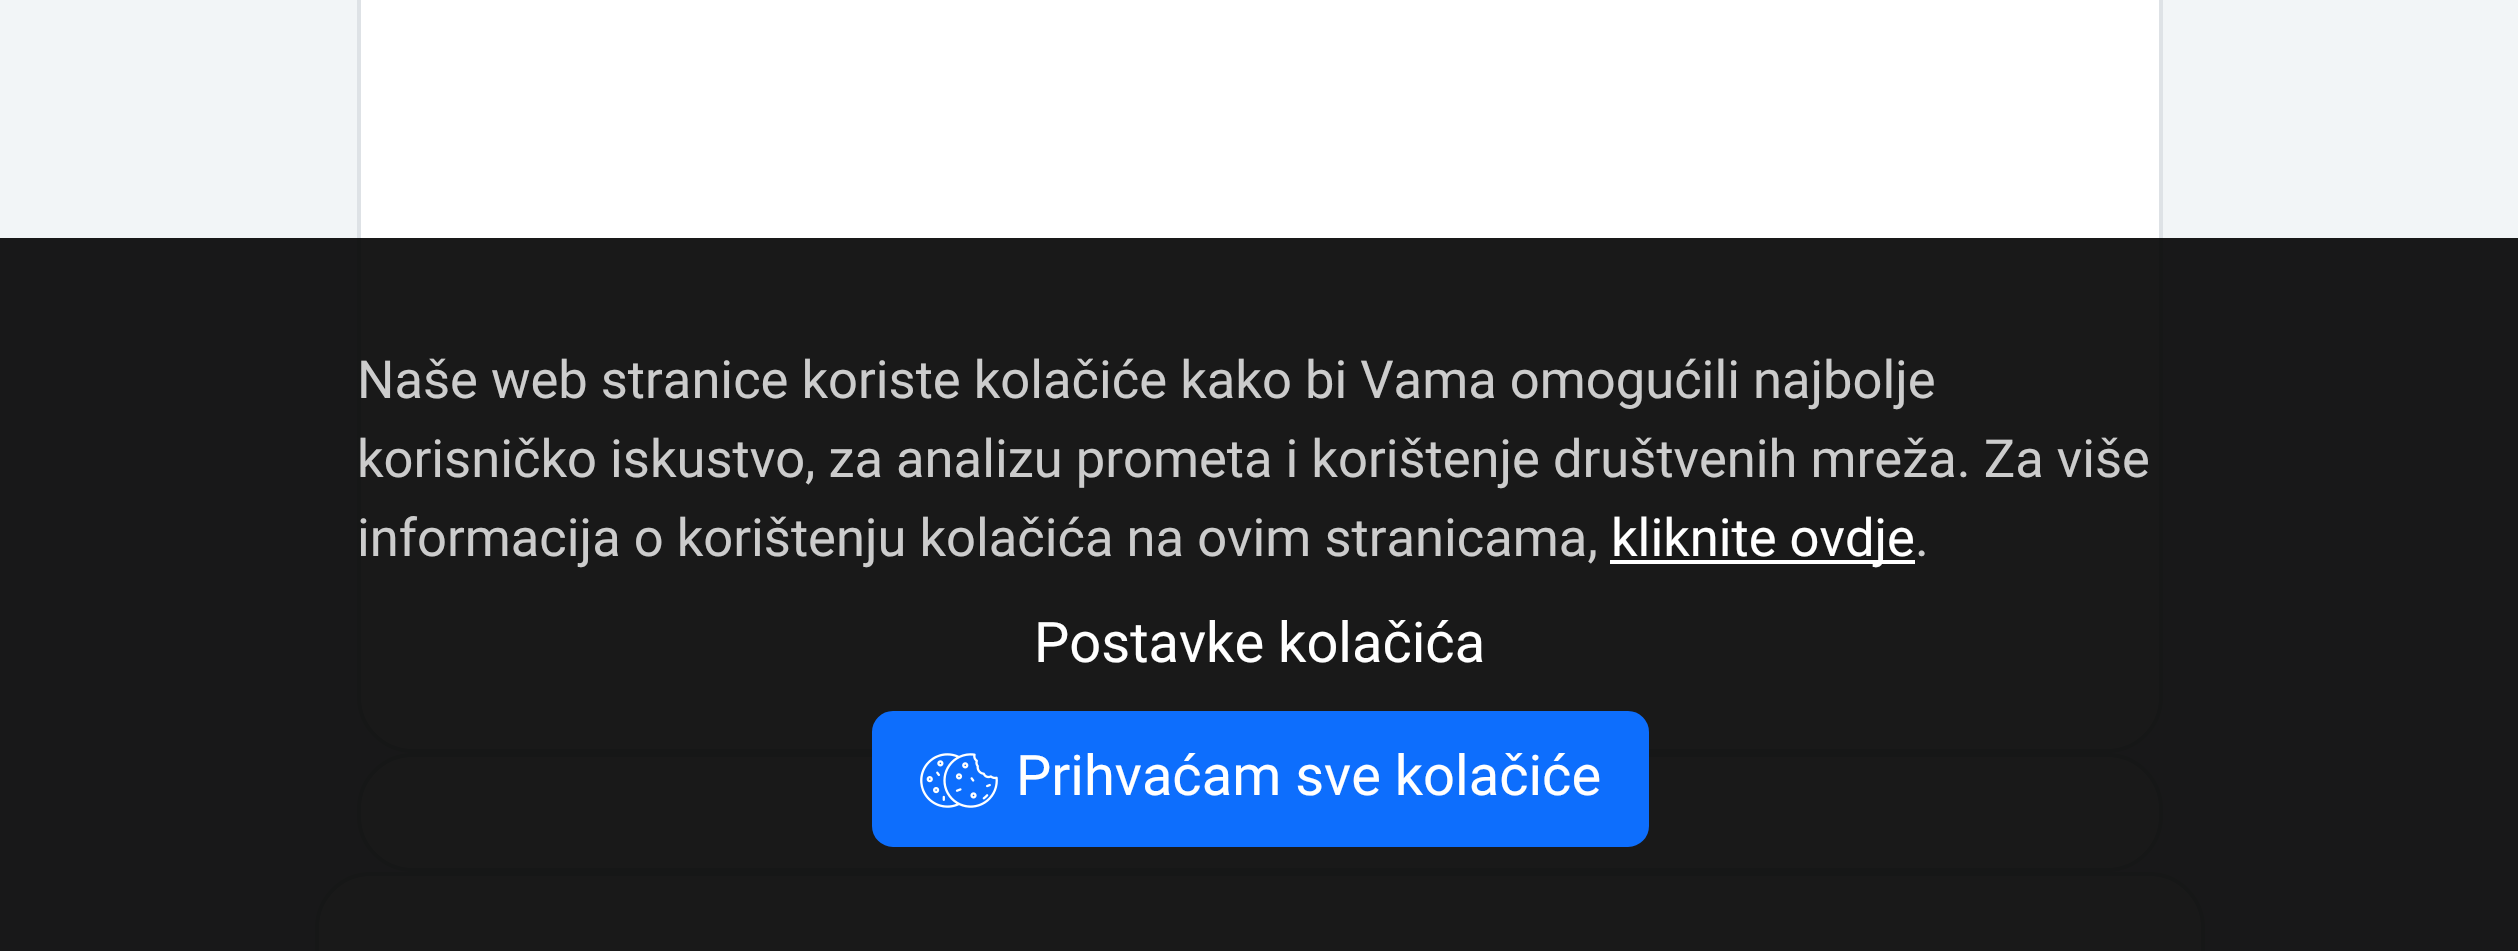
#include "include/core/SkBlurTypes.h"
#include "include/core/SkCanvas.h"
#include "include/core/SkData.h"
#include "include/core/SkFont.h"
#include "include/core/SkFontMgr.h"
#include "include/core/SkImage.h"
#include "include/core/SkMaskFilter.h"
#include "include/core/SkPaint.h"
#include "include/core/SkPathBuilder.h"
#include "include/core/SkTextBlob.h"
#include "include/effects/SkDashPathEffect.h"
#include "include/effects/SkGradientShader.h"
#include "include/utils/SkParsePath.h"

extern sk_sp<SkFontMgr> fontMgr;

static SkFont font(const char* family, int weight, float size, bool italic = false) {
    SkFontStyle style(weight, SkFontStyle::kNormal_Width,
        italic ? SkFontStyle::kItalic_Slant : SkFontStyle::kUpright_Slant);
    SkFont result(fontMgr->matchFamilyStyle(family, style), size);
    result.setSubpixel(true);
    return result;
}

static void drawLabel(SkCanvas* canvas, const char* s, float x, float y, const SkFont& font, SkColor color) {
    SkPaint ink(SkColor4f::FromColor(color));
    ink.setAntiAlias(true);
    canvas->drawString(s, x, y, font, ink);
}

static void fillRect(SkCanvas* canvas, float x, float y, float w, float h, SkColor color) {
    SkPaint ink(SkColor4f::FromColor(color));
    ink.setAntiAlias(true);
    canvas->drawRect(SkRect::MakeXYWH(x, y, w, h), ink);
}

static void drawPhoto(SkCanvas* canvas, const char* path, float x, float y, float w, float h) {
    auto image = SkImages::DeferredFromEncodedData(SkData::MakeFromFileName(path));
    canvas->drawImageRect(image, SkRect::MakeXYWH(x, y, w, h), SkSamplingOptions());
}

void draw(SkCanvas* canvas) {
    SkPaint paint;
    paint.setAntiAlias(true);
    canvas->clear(0xFFF2F5F7);
    paint.setColor(0xFFFFFFFF);
    canvas->drawRoundRect(SkRect::MakeXYWH(359, -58, 1802, 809), 54, 54, paint);
    paint.setStroke(true);
    paint.setStrokeWidth(4);
    paint.setColor(0xFFDEE2E6);
    canvas->drawRoundRect(SkRect::MakeXYWH(359, -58, 1802, 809), 54, 54, paint);
    paint.setStroke(false);
    paint.setColor(0xFFFFFFFF);
    canvas->drawRoundRect(SkRect::MakeXYWH(359, 755, 1802, 115), 54, 54, paint);
    paint.setStroke(true);
    paint.setColor(0xFFDEE2E6);
    canvas->drawRoundRect(SkRect::MakeXYWH(359, 755, 1802, 115), 54, 54, paint);
    paint.setStroke(false);
    paint.setColor(0xFFFFFFFF);
    canvas->drawRoundRect(SkRect::MakeXYWH(317, 874, 1886, 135), 54, 54, paint);
    paint.setStroke(true);
    paint.setColor(0xFFDEE2E6);
    canvas->drawRoundRect(SkRect::MakeXYWH(317, 874, 1886, 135), 54, 54, paint);
    fillRect(canvas, 0, 238, 2518, 713, 0xE6000000);
    SkFont font1 = font("Roboto", 400, 52.5f);
    drawLabel(canvas, "Naše web stranice koriste kolačiće kako bi Vama omogućili najbolje", 357, 398, font1, 0xFFCCCCCC);
    drawLabel(canvas, "korisničko iskustvo, za analizu prometa i korištenje društvenih mreža. Za više", 357, 477, font1, 0xFFCCCCCC);
    drawLabel(canvas, "informacija o korištenju kolačića na ovim stranicama,", 357, 556, font1, 0xFFCCCCCC);
    fillRect(canvas, 1610, 560, 305, 4, 0xFFFFFFFF);
    drawLabel(canvas, "kliknite ovdje", 1611, 556, font1, 0xFFFFFFFF);
    drawLabel(canvas, ".", 1915, 556, font1, 0xFFCCCCCC);
    SkFont font2 = font("Roboto", 400, 56);
    drawLabel(canvas, "Postavke kolačića", 1034, 662, font2, 0xFFFFFFFF);
    paint.setStroke(false);
    paint.setColor(0xFF0D6EFD);
    canvas->drawRoundRect(SkRect::MakeXYWH(874, 713, 773, 132), 19, 19, paint);
    paint.setStroke(true);
    canvas->drawRoundRect(SkRect::MakeXYWH(874, 713, 773, 132), 19, 19, paint);
    drawPhoto(canvas, "assets/img1.png", 920, 753, 78, 55);
    drawLabel(canvas, "Prihvaćam sve kolačiće", 1016, 795, font2, 0xFFFFFFFF);
}
